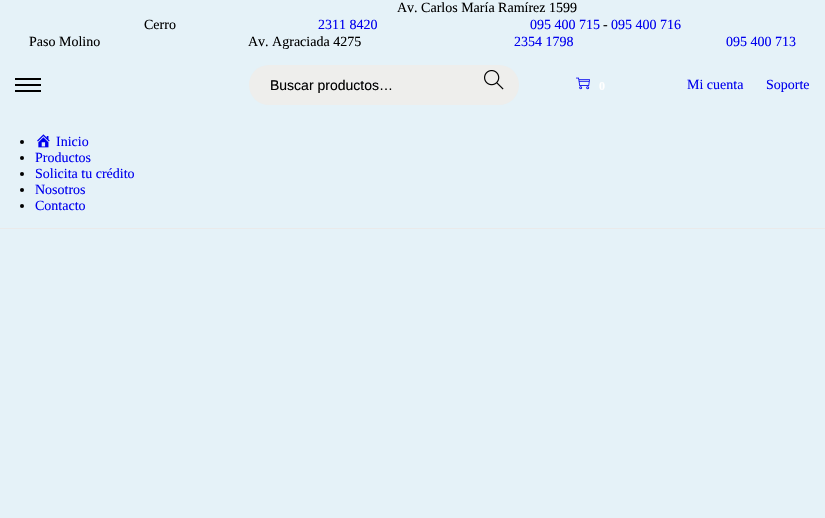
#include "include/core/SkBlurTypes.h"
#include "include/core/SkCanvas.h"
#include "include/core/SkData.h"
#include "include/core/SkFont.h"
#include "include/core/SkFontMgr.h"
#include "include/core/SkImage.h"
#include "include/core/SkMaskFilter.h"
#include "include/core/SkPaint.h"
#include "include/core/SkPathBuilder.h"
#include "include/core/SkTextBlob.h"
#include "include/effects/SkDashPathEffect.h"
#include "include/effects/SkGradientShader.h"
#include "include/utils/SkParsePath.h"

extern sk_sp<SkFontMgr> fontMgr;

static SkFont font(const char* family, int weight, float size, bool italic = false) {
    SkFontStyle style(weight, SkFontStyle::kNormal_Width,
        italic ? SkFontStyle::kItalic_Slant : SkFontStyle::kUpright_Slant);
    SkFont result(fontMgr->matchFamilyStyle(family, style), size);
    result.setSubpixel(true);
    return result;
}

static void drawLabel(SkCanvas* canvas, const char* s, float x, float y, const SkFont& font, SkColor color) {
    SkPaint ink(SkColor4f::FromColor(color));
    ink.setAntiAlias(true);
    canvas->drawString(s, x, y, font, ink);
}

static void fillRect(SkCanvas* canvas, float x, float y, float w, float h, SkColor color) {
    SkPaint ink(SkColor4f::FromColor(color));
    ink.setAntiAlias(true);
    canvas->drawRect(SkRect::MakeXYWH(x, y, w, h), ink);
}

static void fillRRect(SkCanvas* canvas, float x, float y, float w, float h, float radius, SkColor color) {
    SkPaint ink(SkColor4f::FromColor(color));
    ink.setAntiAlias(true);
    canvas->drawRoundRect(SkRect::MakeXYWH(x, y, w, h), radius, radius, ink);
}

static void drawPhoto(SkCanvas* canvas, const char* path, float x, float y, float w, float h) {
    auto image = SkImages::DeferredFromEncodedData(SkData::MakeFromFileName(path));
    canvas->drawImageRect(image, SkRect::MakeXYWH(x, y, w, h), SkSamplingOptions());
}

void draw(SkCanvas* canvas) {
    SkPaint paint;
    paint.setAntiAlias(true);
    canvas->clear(0xFFE5F2F8);
    SkFont font1 = font("Liberation Serif", 400, 14);
    drawLabel(canvas, "Av. Carlos María Ramírez 1599", 397, 12, font1, 0xFF000000);
    drawLabel(canvas, "Cerro", 144, 29, font1, 0xFF000000);
    drawLabel(canvas, "2311 8420", 318, 29, font1, 0xFF0000EE);
    drawLabel(canvas, "095 400 715", 530, 29, font1, 0xFF0000EE);
    drawLabel(canvas, "-", 603, 29, font1, 0xFF000000);
    drawLabel(canvas, "095 400 716", 611, 29, font1, 0xFF0000EE);
    drawLabel(canvas, "Paso Molino", 29, 46, font1, 0xFF000000);
    drawLabel(canvas, "Av. Agraciada 4275", 248, 46, font1, 0xFF000000);
    drawLabel(canvas, "2354 1798", 514, 46, font1, 0xFF0000EE);
    drawLabel(canvas, "095 400 713", 726, 46, font1, 0xFF0000EE);
    fillRect(canvas, 0, 228, 825, 1, 0xFFEAEAEA);
    fillRect(canvas, 15, 84, 26, 2, 0xFF000000);
    fillRect(canvas, 15, 78, 26, 2, 0xFF000000);
    fillRect(canvas, 15, 90, 26, 2, 0xFF000000);
    fillRRect(canvas, 249, 65, 270, 40, 20, 0xFFEEEEEC);
    SkFont font2 = font("Liberation Sans", 400, 14);
    drawLabel(canvas, "Buscar productos…", 270, 90, font2, 0xFF000000);
    drawPhoto(canvas, "assets/img1.png", 484, 70, 20, 20);
    drawPhoto(canvas, "assets/img2.png", 576, 77, 14, 13);
    SkFont font3 = font("Liberation Serif", 700, 12);
    drawLabel(canvas, "0", 599, 90, font3, 0xFFFFFFFF);
    drawLabel(canvas, "Mi cuenta", 687, 89, font1, 0xFF0000EE);
    drawLabel(canvas, "Soporte", 766, 89, font1, 0xFF0000EE);
    paint.setColor(0xFF000000);
    canvas->drawCircle(22, 142, 2, paint);
    drawPhoto(canvas, "assets/img3.png", 37, 134, 13, 14);
    drawLabel(canvas, "Inicio", 56, 146, font1, 0xFF0000EE);
    canvas->drawCircle(22, 158, 2, paint);
    drawLabel(canvas, "Productos", 35, 162, font1, 0xFF0000EE);
    canvas->drawCircle(22, 174, 2, paint);
    drawLabel(canvas, "Solicita tu crédito", 35, 178, font1, 0xFF0000EE);
    canvas->drawCircle(22, 190, 2, paint);
    drawLabel(canvas, "Nosotros", 35, 194, font1, 0xFF0000EE);
    canvas->drawCircle(22, 206, 2, paint);
    drawLabel(canvas, "Contacto", 35, 210, font1, 0xFF0000EE);
}
